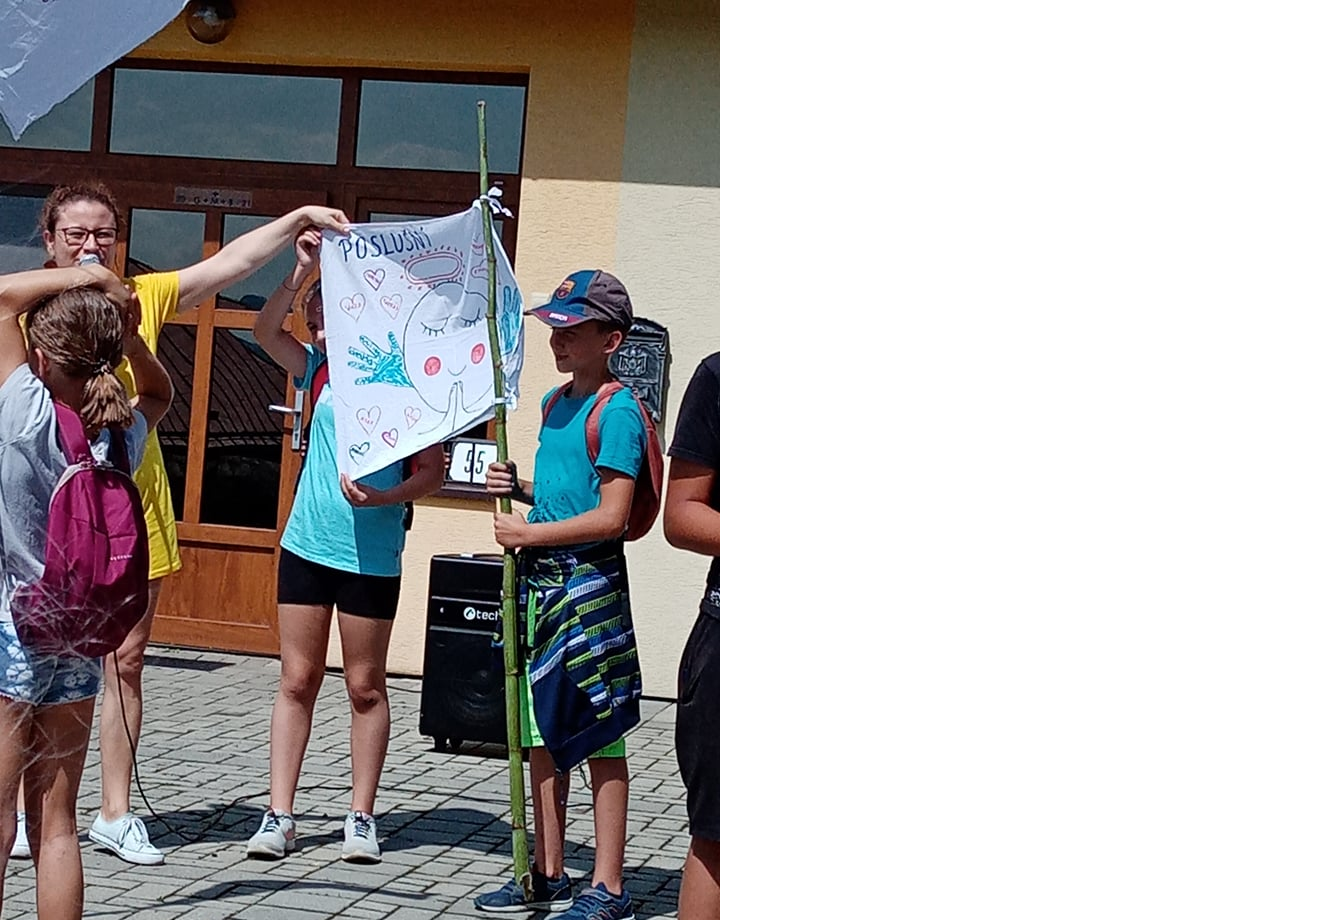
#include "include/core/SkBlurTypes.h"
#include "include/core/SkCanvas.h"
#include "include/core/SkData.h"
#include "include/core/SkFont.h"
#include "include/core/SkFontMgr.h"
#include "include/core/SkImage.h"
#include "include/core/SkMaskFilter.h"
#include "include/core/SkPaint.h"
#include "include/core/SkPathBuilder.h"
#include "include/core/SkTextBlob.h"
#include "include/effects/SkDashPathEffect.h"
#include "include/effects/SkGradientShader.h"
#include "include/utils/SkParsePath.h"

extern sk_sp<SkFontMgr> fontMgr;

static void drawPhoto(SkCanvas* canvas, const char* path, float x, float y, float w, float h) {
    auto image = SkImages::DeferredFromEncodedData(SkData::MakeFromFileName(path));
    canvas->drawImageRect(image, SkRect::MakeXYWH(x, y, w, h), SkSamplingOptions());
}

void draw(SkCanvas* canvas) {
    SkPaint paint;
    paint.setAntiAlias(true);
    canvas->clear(0xFFFFFFFF);
    drawPhoto(canvas, "assets/img1.png", 0, 0, 720, 920);
}
